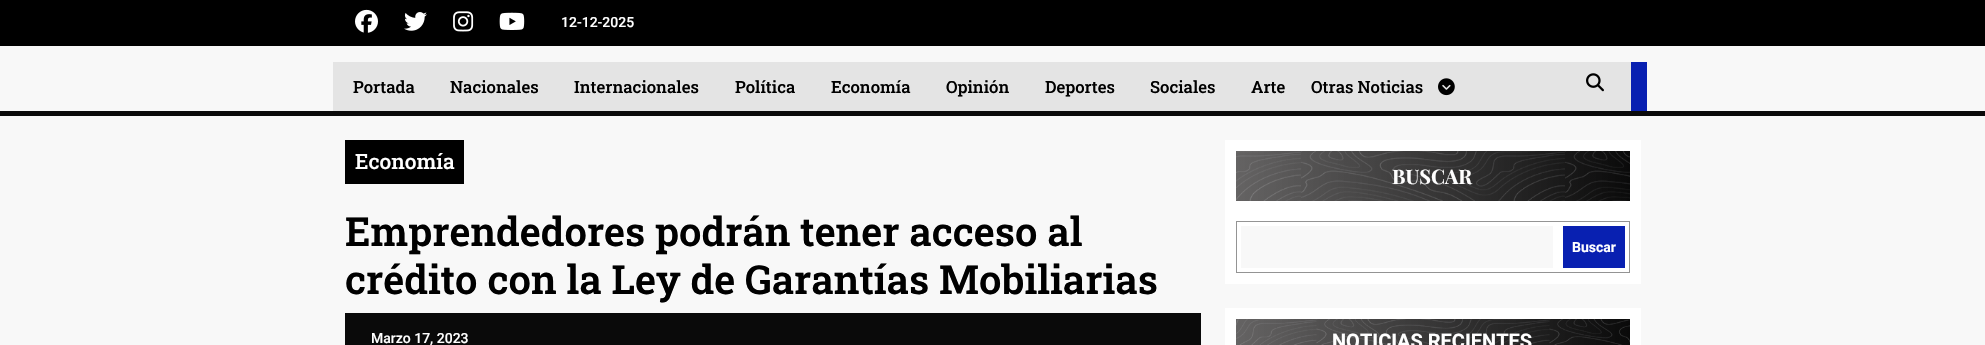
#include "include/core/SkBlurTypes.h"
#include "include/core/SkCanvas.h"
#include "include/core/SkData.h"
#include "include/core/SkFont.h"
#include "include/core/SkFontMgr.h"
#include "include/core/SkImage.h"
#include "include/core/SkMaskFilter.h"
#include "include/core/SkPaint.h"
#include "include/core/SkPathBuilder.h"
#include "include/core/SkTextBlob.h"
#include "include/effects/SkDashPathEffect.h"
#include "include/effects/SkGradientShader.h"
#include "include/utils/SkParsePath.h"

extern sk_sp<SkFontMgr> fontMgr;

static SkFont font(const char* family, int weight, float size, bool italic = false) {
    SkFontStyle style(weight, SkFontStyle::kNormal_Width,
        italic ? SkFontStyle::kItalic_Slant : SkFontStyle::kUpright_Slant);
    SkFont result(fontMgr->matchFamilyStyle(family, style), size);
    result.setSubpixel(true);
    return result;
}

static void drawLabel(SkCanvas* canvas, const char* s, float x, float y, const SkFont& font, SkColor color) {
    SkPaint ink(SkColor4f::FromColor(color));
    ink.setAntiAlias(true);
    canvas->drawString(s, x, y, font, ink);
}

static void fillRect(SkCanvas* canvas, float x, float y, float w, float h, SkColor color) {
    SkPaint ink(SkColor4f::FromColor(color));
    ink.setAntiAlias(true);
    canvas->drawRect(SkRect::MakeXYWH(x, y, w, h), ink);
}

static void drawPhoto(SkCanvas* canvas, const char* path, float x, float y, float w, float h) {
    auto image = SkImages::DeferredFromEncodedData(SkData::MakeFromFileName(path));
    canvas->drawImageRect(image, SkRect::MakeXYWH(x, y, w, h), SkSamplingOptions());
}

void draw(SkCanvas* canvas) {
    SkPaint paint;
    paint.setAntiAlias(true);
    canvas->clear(0xFFF8F8F8);
    fillRect(canvas, 0, 0, 1985, 46, 0xFF000000);
    drawPhoto(canvas, "assets/img1.png", 355, 9, 23, 24);
    drawPhoto(canvas, "assets/img2.png", 404, 12, 23, 19);
    drawPhoto(canvas, "assets/img3.png", 453, 11, 21, 21);
    drawPhoto(canvas, "assets/img4.png", 499, 12, 26, 18);
    SkFont font1 = font("Roboto", 500, 14);
    drawLabel(canvas, "12-12-2025", 561, 27, font1, 0xFFFFFFFF);
    fillRect(canvas, 0, 111, 1985, 5, 0xFF0A0A0A);
    fillRect(canvas, 333, 62, 1298, 49, 0xFFE4E4E4);
    SkFont font2 = font("Roboto Slab", 500, 16.75f);
    drawLabel(canvas, "Portada", 353, 93, font2, 0xFF000000);
    drawLabel(canvas, "Nacionales", 450, 93, font2, 0xFF000000);
    drawLabel(canvas, "Internacionales", 574, 93, font2, 0xFF000000);
    drawLabel(canvas, "Política", 735, 93, font2, 0xFF000000);
    drawLabel(canvas, "Economía", 831, 93, font2, 0xFF000000);
    drawLabel(canvas, "Opinión", 946, 93, font2, 0xFF000000);
    drawLabel(canvas, "Deportes", 1045, 93, font2, 0xFF000000);
    drawLabel(canvas, "Sociales", 1150, 93, font2, 0xFF000000);
    drawLabel(canvas, "Arte", 1251, 93, font2, 0xFF000000);
    drawLabel(canvas, "Otras Noticias", 1311, 93, font2, 0xFF000000);
    drawPhoto(canvas, "assets/img5.png", 1438, 78, 17, 18);
    drawPhoto(canvas, "assets/img6.png", 1586, 73, 18, 19);
    fillRect(canvas, 1631, 62, 16, 49, 0xFF0820B1);
    fillRect(canvas, 345, 140, 119, 44, 0xFF000000);
    SkFont font3 = font("Roboto Slab", 500, 21);
    drawLabel(canvas, "Economía", 355, 169, font3, 0xFFFFFFFF);
    SkFont font4 = font("Roboto Slab", 600, 40);
    drawLabel(canvas, "Emprendedores podrán tener acceso al", 345, 246, font4, 0xFF000000);
    drawLabel(canvas, "crédito con la Ley de Garantías Mobiliarias", 345, 294, font4, 0xFF000000);
    fillRect(canvas, 345, 313, 856, 32, 0xFF0A0A0A);
    drawLabel(canvas, "Marzo 17, 2023", 371, 343, font1, 0xFFFFFFFF);
    fillRect(canvas, 1225, 140, 416, 144, 0xFFFFFFFF);
    drawPhoto(canvas, "assets/img7.png", 1236, 151, 394, 50);
    SkFont font5 = font("Playfair Display", 700, 20);
    drawLabel(canvas, "BUSCAR", 1392, 184, font5, 0xFFFFFFFF);
    paint.setStroke(true);
    paint.setStrokeWidth(1);
    paint.setColor(0xFF949494);
    canvas->drawRect(SkRect::MakeXYWH(1236.5f, 221.5f, 393, 51), paint);
    fillRect(canvas, 1241, 226, 312, 42, 0xFFF8F8F8);
    fillRect(canvas, 1563, 226, 62, 42, 0xFF0820B1);
    SkFont font6 = font("Roboto", 700, 14);
    drawLabel(canvas, "Buscar", 1572, 252, font6, 0xFFFFFFFF);
    fillRect(canvas, 1225, 308, 416, 37, 0xFFFFFFFF);
    drawPhoto(canvas, "assets/img8.png", 1236, 319, 394, 26);
    SkFont font7 = font("Roboto", 700, 20);
    drawLabel(canvas, "NOTICIAS RECIENTES", 1332, 348, font7, 0xFFFFFFFF);
}
